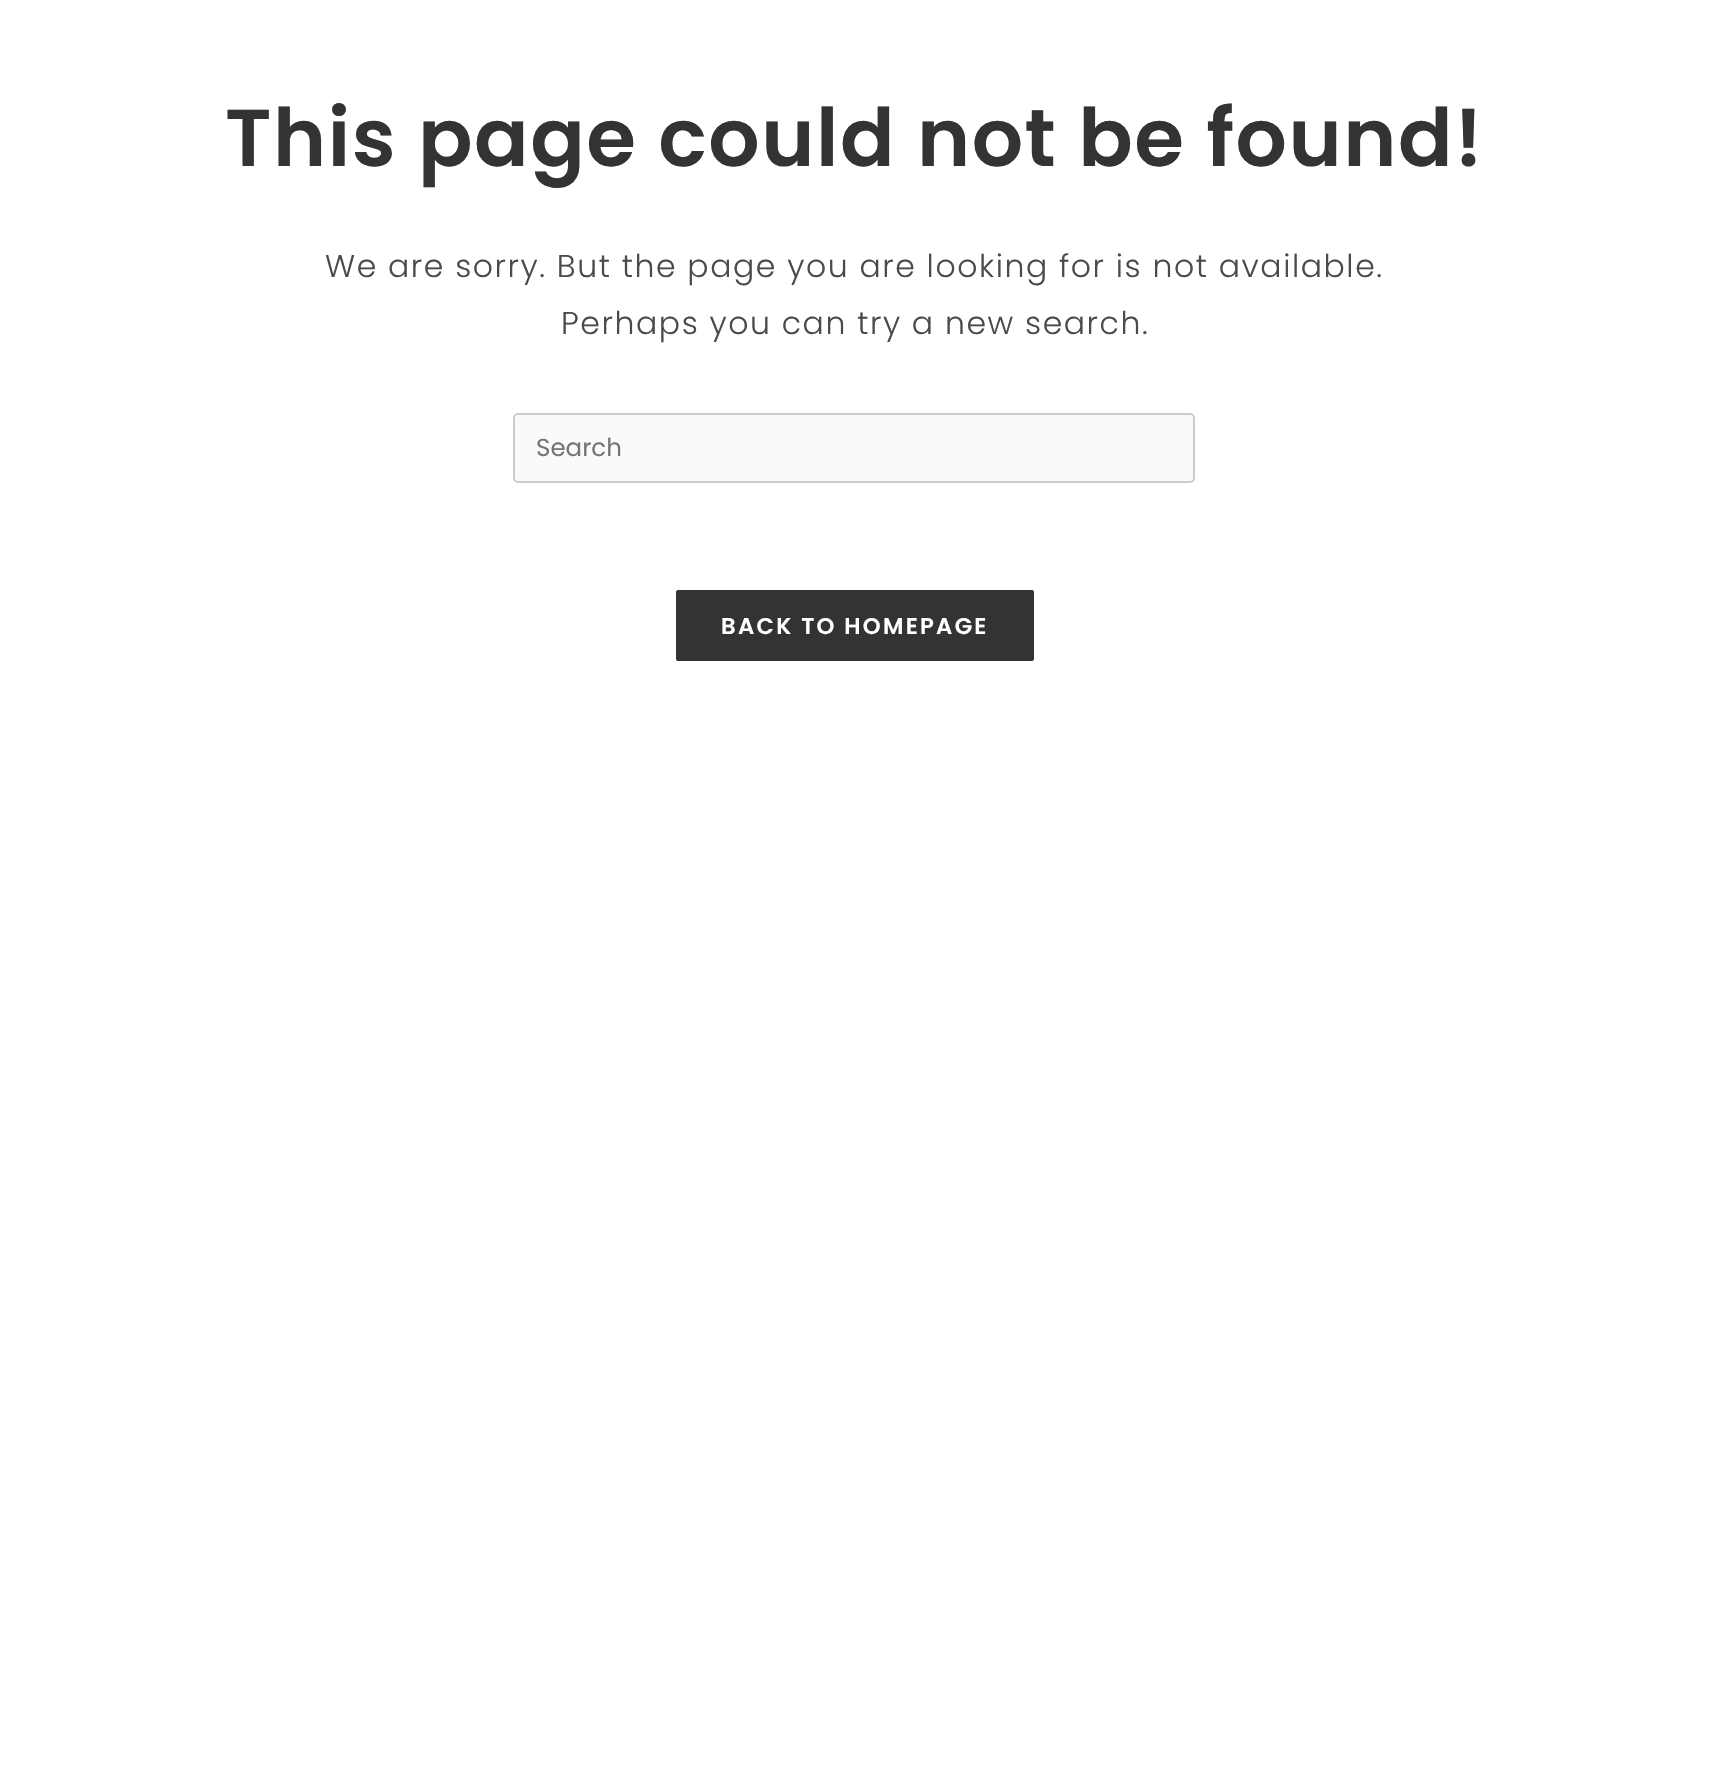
#include "include/core/SkBlurTypes.h"
#include "include/core/SkCanvas.h"
#include "include/core/SkData.h"
#include "include/core/SkFont.h"
#include "include/core/SkFontMgr.h"
#include "include/core/SkImage.h"
#include "include/core/SkMaskFilter.h"
#include "include/core/SkPaint.h"
#include "include/core/SkPathBuilder.h"
#include "include/core/SkTextBlob.h"
#include "include/effects/SkDashPathEffect.h"
#include "include/effects/SkGradientShader.h"
#include "include/utils/SkParsePath.h"

extern sk_sp<SkFontMgr> fontMgr;

static SkFont font(const char* family, int weight, float size, bool italic = false) {
    SkFontStyle style(weight, SkFontStyle::kNormal_Width,
        italic ? SkFontStyle::kItalic_Slant : SkFontStyle::kUpright_Slant);
    SkFont result(fontMgr->matchFamilyStyle(family, style), size);
    result.setSubpixel(true);
    return result;
}

static void drawLabel(SkCanvas* canvas, const char* s, float x, float y, const SkFont& font, SkColor color) {
    SkPaint ink(SkColor4f::FromColor(color));
    ink.setAntiAlias(true);
    canvas->drawString(s, x, y, font, ink);
}

static void drawTracked(SkCanvas* canvas, const char* s, float x, float y, const SkFont& font, const SkPaint& ink, float letter, float word) {
    std::vector<SkGlyphID> glyphs(font.countText(s, strlen(s), SkTextEncoding::kUTF8));
    std::vector<float> xs(glyphs.size());
    font.textToGlyphs(s, strlen(s), SkTextEncoding::kUTF8, glyphs);
    font.getXPos(glyphs, xs, x);
    float extra = 0;
    for (size_t i = 0; i < glyphs.size(); i++) {
        xs[i] += extra;
        extra += letter + word * (glyphs[i] == font.unicharToGlyph(' '));
    }
    canvas->drawTextBlob(SkTextBlob::MakeFromPosHGlyphs(glyphs, xs, y, font), 0, 0, ink);
}

void draw(SkCanvas* canvas) {
    SkPaint paint;
    paint.setAntiAlias(true);
    canvas->clear(0xFFFFFFFF);
    SkFont font1 = font("Poppins", 600, 80.5f);
    paint.setColor(0xFF333333);
    drawTracked(canvas, "This page could not be found!", 225, 166, font1, paint, 1.57f, 0);
    SkFont font2 = font("Poppins", 300, 31.5f);
    paint.setColor(0xFF4A4A4A);
    drawTracked(canvas, "We are sorry. But the page you are looking for is not available.", 325, 277, font2, paint, 1.57f, 0);
    drawTracked(canvas, "Perhaps you can try a new search.", 561, 334, font2, paint, 1.57f, 0);
    paint.setColor(0xFFFAFAFA);
    canvas->drawRoundRect(SkRect::MakeXYWH(514, 414, 680, 68), 4, 4, paint);
    paint.setStroke(true);
    paint.setStrokeWidth(2);
    paint.setColor(0xFFCCCCCC);
    canvas->drawRoundRect(SkRect::MakeXYWH(514, 414, 680, 68), 4, 4, paint);
    SkFont font3 = font("Poppins", 400, 24.5f);
    drawLabel(canvas, "Search", 536, 456, font3, 0xFF757575);
    paint.setStroke(false);
    paint.setColor(0xFF333333);
    canvas->drawRoundRect(SkRect::MakeXYWH(675, 589, 360, 73), 3, 3, paint);
    paint.setStroke(true);
    paint.setColor(0xFFFFFFFF);
    canvas->drawRoundRect(SkRect::MakeXYWH(675, 589, 360, 73), 3, 3, paint);
    SkFont font4 = font("Poppins", 600, 22.75f);
    paint.setStroke(false);
    drawTracked(canvas, "BACK TO HOMEPAGE", 721, 634, font4, paint, 2.25f, 0);
}
